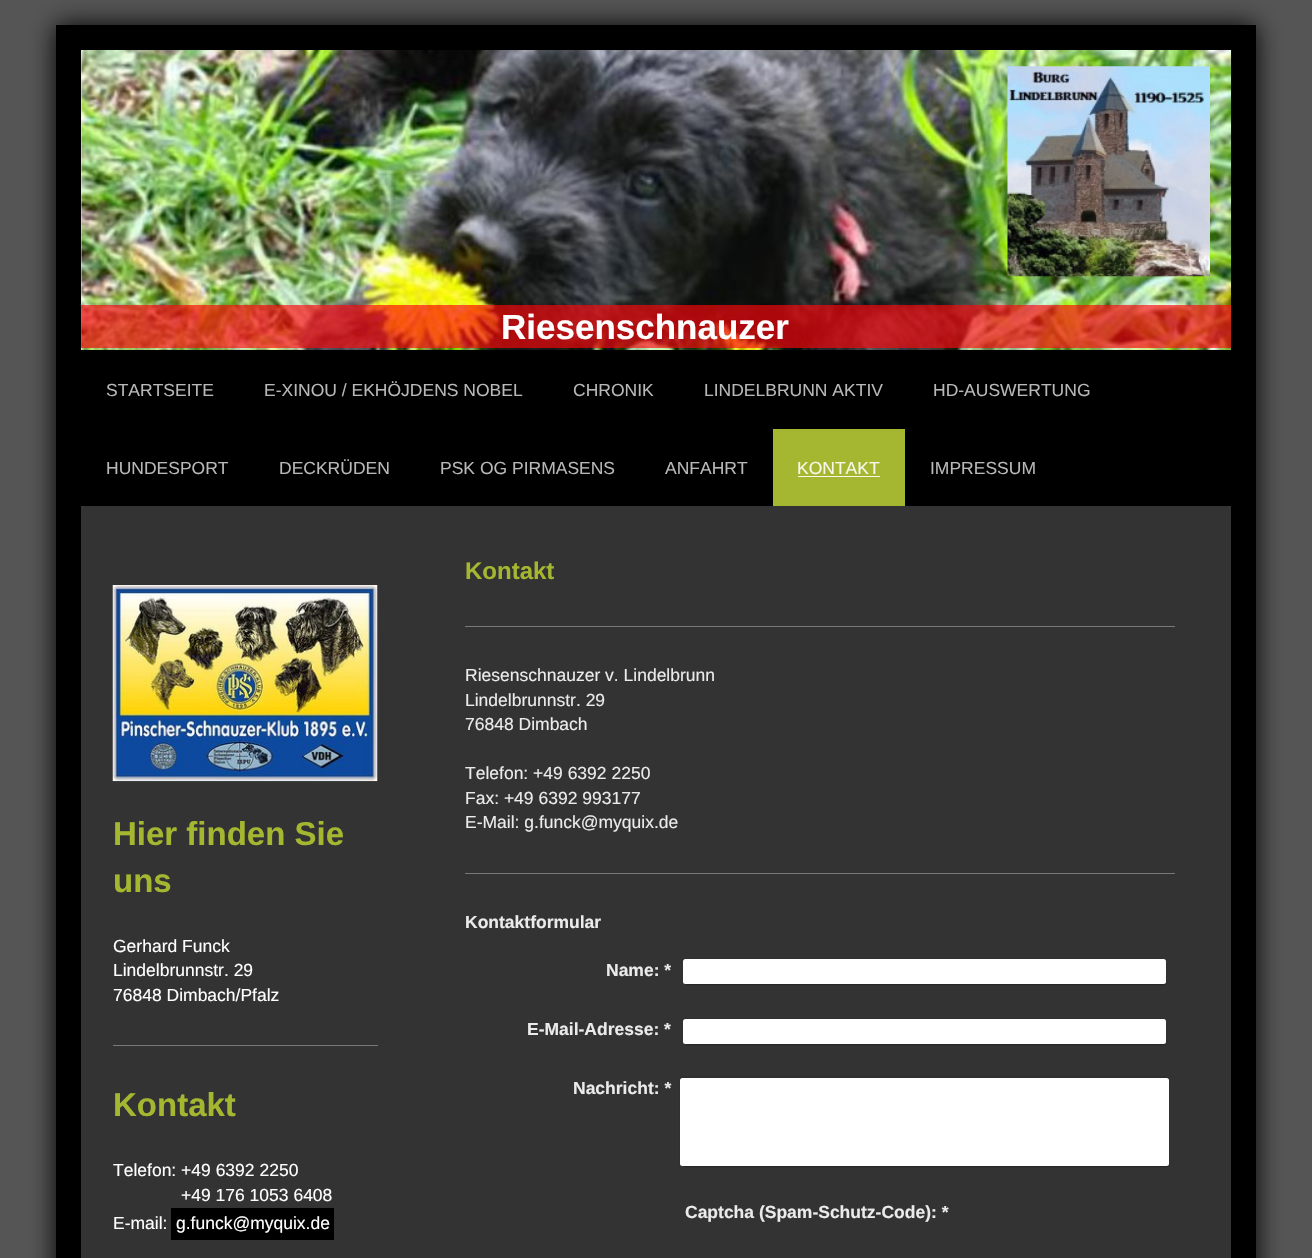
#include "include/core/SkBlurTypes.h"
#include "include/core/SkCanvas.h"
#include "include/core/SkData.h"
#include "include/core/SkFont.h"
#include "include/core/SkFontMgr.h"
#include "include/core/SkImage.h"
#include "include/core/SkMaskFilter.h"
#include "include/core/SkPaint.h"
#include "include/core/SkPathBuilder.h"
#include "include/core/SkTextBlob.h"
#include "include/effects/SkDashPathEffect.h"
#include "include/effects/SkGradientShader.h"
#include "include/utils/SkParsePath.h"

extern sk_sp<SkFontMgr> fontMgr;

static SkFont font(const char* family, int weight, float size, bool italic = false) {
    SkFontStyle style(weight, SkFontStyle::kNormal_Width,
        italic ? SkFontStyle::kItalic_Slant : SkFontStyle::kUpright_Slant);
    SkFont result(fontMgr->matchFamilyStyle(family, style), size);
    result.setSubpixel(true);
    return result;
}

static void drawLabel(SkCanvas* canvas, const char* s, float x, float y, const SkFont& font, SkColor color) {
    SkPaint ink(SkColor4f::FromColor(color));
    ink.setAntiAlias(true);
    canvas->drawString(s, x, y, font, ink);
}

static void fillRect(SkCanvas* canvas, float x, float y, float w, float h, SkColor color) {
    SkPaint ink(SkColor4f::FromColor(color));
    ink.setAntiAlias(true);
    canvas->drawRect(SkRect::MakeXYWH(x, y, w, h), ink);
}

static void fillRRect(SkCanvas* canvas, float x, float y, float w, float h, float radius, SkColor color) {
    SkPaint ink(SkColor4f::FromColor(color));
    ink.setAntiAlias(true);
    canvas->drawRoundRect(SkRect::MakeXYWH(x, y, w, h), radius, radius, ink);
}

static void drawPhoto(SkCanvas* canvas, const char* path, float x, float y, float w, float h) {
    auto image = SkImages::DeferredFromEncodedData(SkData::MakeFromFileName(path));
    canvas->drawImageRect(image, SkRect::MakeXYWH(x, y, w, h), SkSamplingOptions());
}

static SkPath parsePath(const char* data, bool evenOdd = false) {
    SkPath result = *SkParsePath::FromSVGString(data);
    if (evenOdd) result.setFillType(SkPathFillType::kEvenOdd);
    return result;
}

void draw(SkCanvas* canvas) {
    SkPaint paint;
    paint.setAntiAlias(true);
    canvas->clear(0xFF555555);
    paint.setColor(0xFF000000);
    paint.setMaskFilter(SkMaskFilter::MakeBlur(kNormal_SkBlurStyle, 12.5f));
    canvas->drawRect(SkRect::MakeXYWH(56, 25, 1200, 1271), paint);
    paint.setMaskFilter(nullptr);
    fillRect(canvas, 56, 25, 1200, 1233, 0xFF000000);
    fillRect(canvas, 81, 50, 1, 300, 0xFFEEEEEE);
    drawPhoto(canvas, "assets/img1.png", 81, 50, 1151, 300);
    drawPhoto(canvas, "assets/img2.png", 1007, 66, 203, 211);
    fillRect(canvas, 81, 305, 1150, 43, 0xA8FD040A);
    SkFont font1 = font("Liberation Sans", 700, 35);
    drawLabel(canvas, "Riesenschnauzer", 501, 339, font1, 0xFFFFFFFF);
    SkFont font2 = font("Liberation Sans", 400, 17.5f);
    drawLabel(canvas, "STARTSEITE", 106, 396, font2, 0xFFB8B8B8);
    drawLabel(canvas, "E-XINOU / EKHÖJDENS NOBEL", 264, 396, font2, 0xFFB8B8B8);
    drawLabel(canvas, "CHRONIK", 573, 396, font2, 0xFFB8B8B8);
    drawLabel(canvas, "LINDELBRUNN AKTIV", 704, 396, font2, 0xFFB8B8B8);
    drawLabel(canvas, "HD-AUSWERTUNG", 933, 396, font2, 0xFFB8B8B8);
    drawLabel(canvas, "HUNDESPORT", 106, 474, font2, 0xFFB8B8B8);
    drawLabel(canvas, "DECKRÜDEN", 279, 474, font2, 0xFFB8B8B8);
    drawLabel(canvas, "PSK OG PIRMASENS", 440, 474, font2, 0xFFB8B8B8);
    drawLabel(canvas, "ANFAHRT", 665, 474, font2, 0xFFB8B8B8);
    fillRect(canvas, 773, 429, 132, 77, 0xFFA5B730);
    drawLabel(canvas, "KONTAKT", 797, 474, font2, 0xFFF6F8EA);
    fillRect(canvas, 798, 476, 82, 1, 0xFFF6F8EA);
    drawLabel(canvas, "IMPRESSUM", 930, 474, font2, 0xFFB8B8B8);
    fillRect(canvas, 81, 506, 1150, 752, 0xFF333333);
    drawPhoto(canvas, "assets/img3.png", 112, 585, 266, 197);
    SkFont font3 = font("Liberation Sans", 700, 33);
    drawLabel(canvas, "Hier finden Sie", 113, 845, font3, 0xFFA5B730);
    drawLabel(canvas, "uns", 113, 892, font3, 0xFFA5B730);
    drawLabel(canvas, "Gerhard Funck", 113, 952, font2, 0xFFFFFFFF);
    drawLabel(canvas, "Lindelbrunnstr. 29", 113, 976, font2, 0xFFFFFFFF);
    drawLabel(canvas, "76848 Dimbach/Pfalz", 113, 1001, font2, 0xFFFFFFFF);
    fillRect(canvas, 113, 1045, 265, 1, 0xFF787878);
    drawLabel(canvas, "Kontakt", 113, 1116, font3, 0xFFA5B730);
    drawLabel(canvas, "Telefon: +49 6392 2250", 113, 1176, font2, 0xFFFFFFFF);
    drawLabel(canvas, "+49 176 1053 6408", 181, 1201, font2, 0xFFFFFFFF);
    drawLabel(canvas, "E-mail:", 113, 1229, font2, 0xFFFFFFFF);
    fillRect(canvas, 171, 1208, 163, 32, 0xFF000000);
    drawLabel(canvas, "g.funck@myquix.de", 176, 1229, font2, 0xFFFFFFFF);
    SkFont font4 = font("Liberation Sans", 700, 24);
    drawLabel(canvas, "Kontakt", 465, 579, font4, 0xFFA5B730);
    fillRect(canvas, 465, 626, 710, 1, 0xFF787878);
    drawLabel(canvas, "Riesenschnauzer v. Lindelbrunn", 465, 681, font2, 0xFFEBEBEB);
    drawLabel(canvas, "Lindelbrunnstr. 29", 465, 706, font2, 0xFFEBEBEB);
    drawLabel(canvas, "76848 Dimbach", 465, 730, font2, 0xFFEBEBEB);
    drawLabel(canvas, "Telefon: +49 6392 2250", 465, 779, font2, 0xFFEBEBEB);
    drawLabel(canvas, "Fax: +49 6392 993177", 465, 804, font2, 0xFFEBEBEB);
    drawLabel(canvas, "E-Mail: g.funck@myquix.de", 465, 828, font2, 0xFFEBEBEB);
    fillRect(canvas, 465, 873, 710, 1, 0xFF787878);
    SkFont font5 = font("Liberation Sans", 700, 17.5f);
    drawLabel(canvas, "Kontaktformular", 465, 928, font5, 0xFFEBEBEB);
    paint.setColor(0xFF2F2F2F);
    canvas->drawPath(parsePath("M684 958C682 958 681 959 681 960V980C681 982 682 983 683 983C681 981 682 974 682 971V965C682 963 682 959 685 959H1164L1162 958Z"), paint);
    paint.setColor(0xCC000000);
    paint.setMaskFilter(SkMaskFilter::MakeBlur(kNormal_SkBlurStyle, 1));
    canvas->drawRect(SkRect::MakeXYWH(686, 964, 479, 20), paint);
    paint.setMaskFilter(nullptr);
    fillRRect(canvas, 683, 959, 483, 25, 2.5f, 0xFFFFFFFF);
    drawLabel(canvas, "Name: *", 606, 976, font5, 0xFFEBEBEB);
    paint.setColor(0xFF2F2F2F);
    canvas->drawPath(parsePath("M684 1018C682 1018 681 1019 681 1020V1040C681 1042 682 1043 683 1043C681 1041 682 1034 682 1031V1025C682 1023 682 1019 685 1019H1164L1162 1018Z"), paint);
    paint.setColor(0xCC000000);
    paint.setMaskFilter(SkMaskFilter::MakeBlur(kNormal_SkBlurStyle, 1));
    canvas->drawRect(SkRect::MakeXYWH(686, 1024, 479, 20), paint);
    paint.setMaskFilter(nullptr);
    fillRRect(canvas, 683, 1019, 483, 25, 2.5f, 0xFFFFFFFF);
    drawLabel(canvas, "E-Mail-Adresse: *", 527, 1035, font5, 0xFFEBEBEB);
    paint.setColor(0xFF2F2F2F);
    canvas->drawPath(parsePath("M682 1076C680 1076 679 1077 679 1078V1162C679 1163 679 1164 680 1165V1094C680 1089 678 1078 682 1078H1166H1168C1168 1077 1167 1076 1166 1076Z"), paint);
    paint.setColor(0xCC000000);
    paint.setMaskFilter(SkMaskFilter::MakeBlur(kNormal_SkBlurStyle, 1));
    canvas->drawRect(SkRect::MakeXYWH(684, 1083, 484, 83), paint);
    paint.setMaskFilter(nullptr);
    fillRRect(canvas, 680, 1078, 489, 88, 2.5f, 0xFFFFFFFF);
    drawLabel(canvas, "Nachricht: *", 573, 1094, font5, 0xFFEBEBEB);
    drawLabel(canvas, "Captcha (Spam-Schutz-Code): *", 685, 1218, font5, 0xFFEBEBEB);
}
